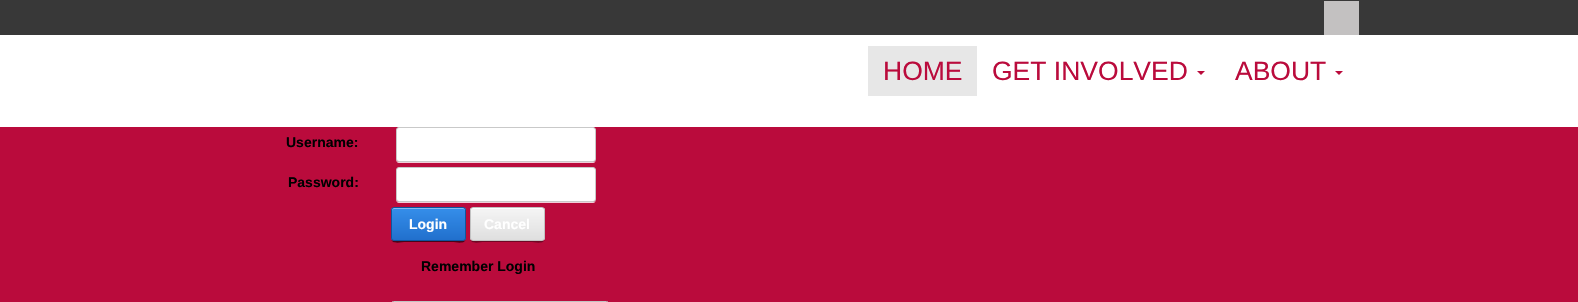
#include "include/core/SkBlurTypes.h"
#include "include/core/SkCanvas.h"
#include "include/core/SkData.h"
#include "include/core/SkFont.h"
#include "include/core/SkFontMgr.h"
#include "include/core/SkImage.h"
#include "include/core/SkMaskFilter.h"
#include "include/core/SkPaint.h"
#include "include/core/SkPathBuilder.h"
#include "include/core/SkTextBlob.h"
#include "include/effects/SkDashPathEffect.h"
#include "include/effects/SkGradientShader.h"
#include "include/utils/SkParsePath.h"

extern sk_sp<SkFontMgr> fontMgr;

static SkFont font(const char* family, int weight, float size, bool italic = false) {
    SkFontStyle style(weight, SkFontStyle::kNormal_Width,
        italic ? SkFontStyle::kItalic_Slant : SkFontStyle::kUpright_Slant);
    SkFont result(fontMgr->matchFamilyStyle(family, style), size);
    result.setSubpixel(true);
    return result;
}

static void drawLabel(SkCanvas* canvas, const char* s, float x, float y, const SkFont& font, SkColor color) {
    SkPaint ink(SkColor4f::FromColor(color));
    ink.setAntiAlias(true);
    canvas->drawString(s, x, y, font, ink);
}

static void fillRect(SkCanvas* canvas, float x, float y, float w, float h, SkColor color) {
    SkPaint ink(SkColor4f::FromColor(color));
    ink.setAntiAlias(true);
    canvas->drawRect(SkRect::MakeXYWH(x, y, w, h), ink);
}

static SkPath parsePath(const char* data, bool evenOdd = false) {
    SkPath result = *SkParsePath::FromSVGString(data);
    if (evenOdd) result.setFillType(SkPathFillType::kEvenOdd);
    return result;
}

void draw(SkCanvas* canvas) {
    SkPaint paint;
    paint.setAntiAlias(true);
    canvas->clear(0xFF383838);
    fillRect(canvas, 1324, 1, 35, 34, 0xFFC3C1C1);
    fillRect(canvas, 0, 35, 1578, 92, 0xFFFFFFFF);
    fillRect(canvas, 868, 46, 109, 50, 0xFFE7E7E7);
    SkFont font1 = font("Liberation Sans", 400, 26.5f);
    drawLabel(canvas, "HOME", 883, 80, font1, 0xFFBA0B3C);
    drawLabel(canvas, "GET INVOLVED", 992, 80, font1, 0xFFBA0B3C);
    paint.setColor(0xFFBA0B3C);
    canvas->drawPath(parsePath("M1197 71H1205L1201 75Z"), paint);
    drawLabel(canvas, "ABOUT", 1235, 80, font1, 0xFFBA0B3C);
    canvas->drawPath(parsePath("M1335 71H1343L1339 75Z"), paint);
    fillRect(canvas, 0, 127, 1578, 175, 0xFFBA0B3C);
    SkFont font2 = font("Liberation Sans", 700, 14);
    drawLabel(canvas, "Username:", 286, 147, font2, 0xFF000000);
    paint.setColor(0xFFF1CED8);
    canvas->drawPath(parsePath("M396 159C396 161 397 163 399 163H593C595 163 596 161 596 159C596 161 595 162 593 162H398L397 161Z"), paint);
    paint.setColor(0xFFFFFFFF);
    canvas->drawRoundRect(SkRect::MakeXYWH(396.5f, 127.5f, 199, 34), 2.5f, 2.5f, paint);
    paint.setStroke(true);
    paint.setStrokeWidth(1);
    paint.setColor(0xFFC9C9C9);
    canvas->drawRoundRect(SkRect::MakeXYWH(396.5f, 127.5f, 199, 34), 2.5f, 2.5f, paint);
    drawLabel(canvas, "Password:", 288, 187, font2, 0xFF000000);
    paint.setStroke(false);
    paint.setColor(0xFFF1CED8);
    canvas->drawPath(parsePath("M396 199C396 201 397 203 399 203H593C595 203 596 201 596 199C596 201 595 202 593 202H398L397 201Z"), paint);
    paint.setColor(0xFFFFFFFF);
    canvas->drawRoundRect(SkRect::MakeXYWH(396.5f, 167.5f, 199, 34), 2.5f, 2.5f, paint);
    paint.setStroke(true);
    paint.setColor(0xFFC9C9C9);
    canvas->drawRoundRect(SkRect::MakeXYWH(396.5f, 167.5f, 199, 34), 2.5f, 2.5f, paint);
    paint.setStroke(false);
    paint.setColor(0xFF4A0418);
    canvas->drawPath(parsePath("M391 238C391 245 401 242 406 242H452C456 242 466 245 466 238C466 240 465 241 463 241H394C392 241 391 240 391 238Z"), paint);
    canvas->save();
    canvas->clipPath(parsePath("M394 207H463C464.5 207 466 208.5 466 210V238C466 239.5 464.5 241 463 241H394C392.5 241 391 239.5 391 238V210C391 208.5 392.5 207 394 207Z"), true);
    {
        const SkColor colors[] = {0xFF358EEA, 0xFF2170CD};
        const float stops[] = {0, 1};
        const SkPoint ends[] = {{429, 208}, {429, 240}};
        paint.setShader(SkGradientShader::MakeLinear(ends, colors, stops, 2, SkTileMode::kClamp));
        paint.setAlpha(255);
    }
    canvas->drawRect(SkRect::MakeXYWH(391, 208, 75, 32), paint);
    canvas->restore();
    paint.setShader(nullptr);
    paint.setColor(0x66FFFFFF);
    canvas->drawPath(parsePath("M394 209H463C464 209 465 210 465 211C465 205 455 208 452 208H406C402 208 392 205 392 211C392 210 393 209 394 209Z"), paint);
    paint.setStroke(true);
    paint.setColor(0xFF0D569E);
    canvas->drawRoundRect(SkRect::MakeXYWH(391.5f, 207.5f, 74, 33), 2.5f, 2.5f, paint);
    drawLabel(canvas, "Login", 409, 229, font2, 0xFFFFFFFF);
    paint.setStroke(false);
    paint.setColor(0xFF700724);
    canvas->drawPath(parsePath("M470 238C470 245 480 242 484 242H530C535 242 545 245 545 238C545 240 544 241 542 241H473C471 241 470 240 470 238Z"), paint);
    canvas->save();
    canvas->clipPath(parsePath("M473 207H542C543.5 207 545 208.5 545 210V238C545 239.5 543.5 241 542 241H473C471.5 241 470 239.5 470 238V210C470 208.5 471.5 207 473 207Z"), true);
    {
        const SkColor colors[] = {0xFFF5F5F5, 0xFFDFDFDF};
        const float stops[] = {0, 1};
        const SkPoint ends[] = {{508, 208}, {508, 240}};
        paint.setShader(SkGradientShader::MakeLinear(ends, colors, stops, 2, SkTileMode::kClamp));
        paint.setAlpha(255);
    }
    canvas->drawRect(SkRect::MakeXYWH(470, 208, 75, 32), paint);
    canvas->restore();
    paint.setShader(nullptr);
    paint.setColor(0xFFFFFFFF);
    canvas->drawPath(parsePath("M473 209H542C543 209 544 210 544 211C544 205 534 208 530 208H484C481 208 471 205 471 211C471 210 472 209 473 209Z"), paint);
    paint.setStroke(true);
    paint.setColor(0xFFC2C2C2);
    canvas->drawRoundRect(SkRect::MakeXYWH(470.5f, 207.5f, 74, 33), 2.5f, 2.5f, paint);
    drawLabel(canvas, "Cancel", 484, 229, font2, 0xFFFFFFFF);
    drawLabel(canvas, "Remember Login", 421, 271, font2, 0xFF000000);
    canvas->drawRoundRect(SkRect::MakeXYWH(391.5f, 301.5f, 217, 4), 2.5f, 2.5f, paint);
}
